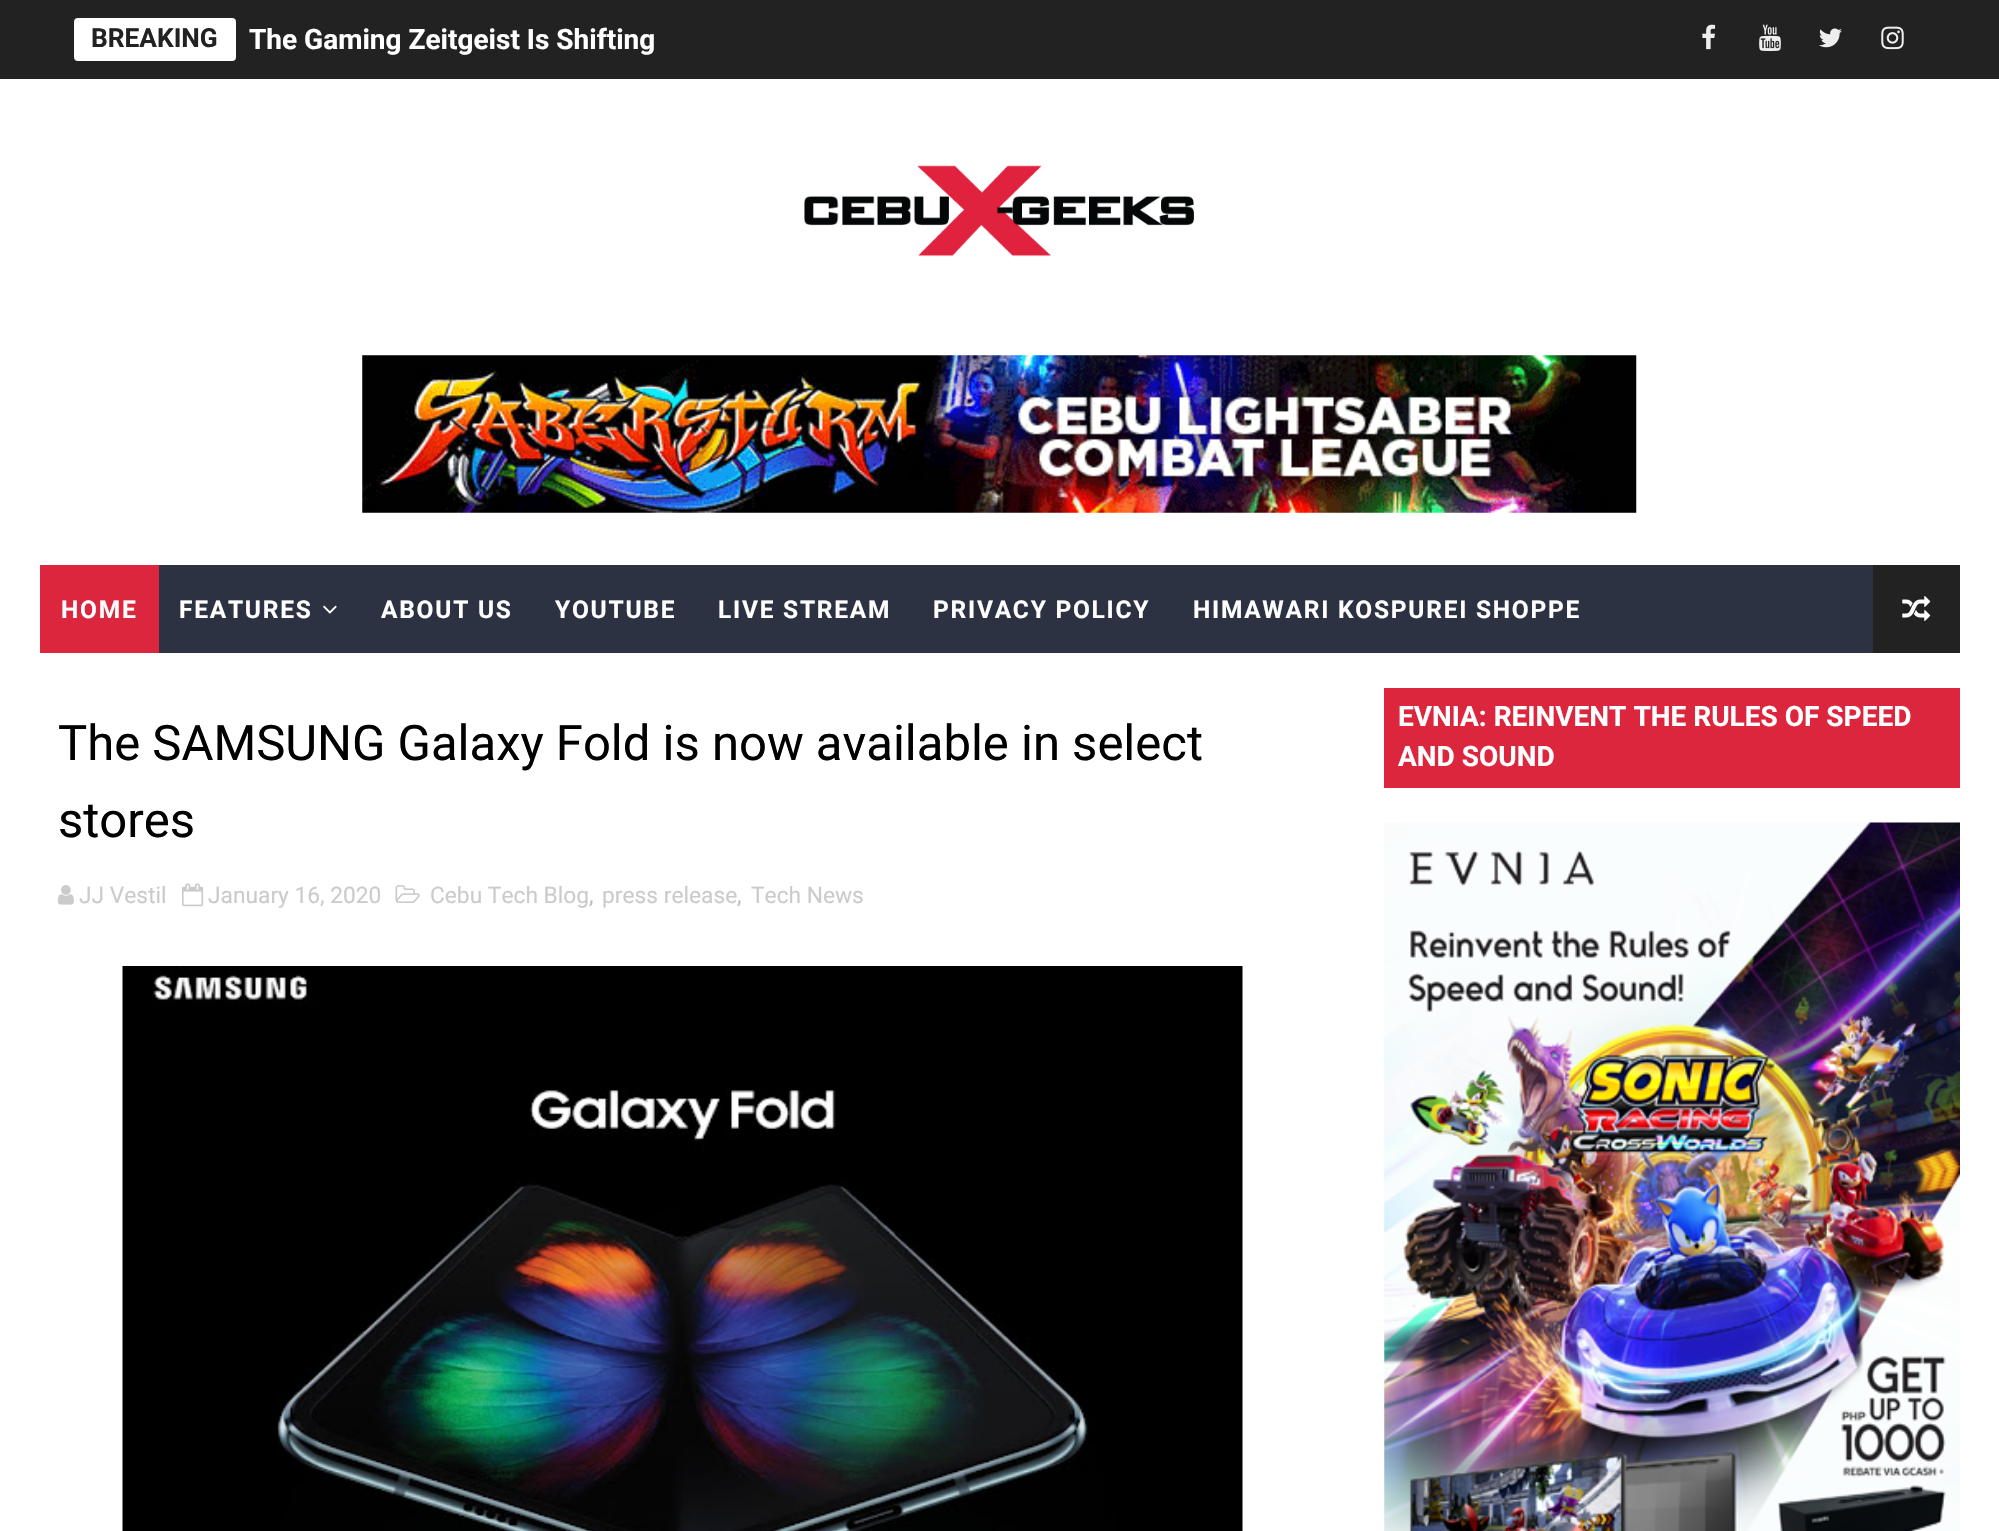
#include "include/core/SkBlurTypes.h"
#include "include/core/SkCanvas.h"
#include "include/core/SkData.h"
#include "include/core/SkFont.h"
#include "include/core/SkFontMgr.h"
#include "include/core/SkImage.h"
#include "include/core/SkMaskFilter.h"
#include "include/core/SkPaint.h"
#include "include/core/SkPathBuilder.h"
#include "include/core/SkTextBlob.h"
#include "include/effects/SkDashPathEffect.h"
#include "include/effects/SkGradientShader.h"
#include "include/utils/SkParsePath.h"

extern sk_sp<SkFontMgr> fontMgr;

static SkFont font(const char* family, int weight, float size, bool italic = false) {
    SkFontStyle style(weight, SkFontStyle::kNormal_Width,
        italic ? SkFontStyle::kItalic_Slant : SkFontStyle::kUpright_Slant);
    SkFont result(fontMgr->matchFamilyStyle(family, style), size);
    result.setSubpixel(true);
    return result;
}

static void drawLabel(SkCanvas* canvas, const char* s, float x, float y, const SkFont& font, SkColor color) {
    SkPaint ink(SkColor4f::FromColor(color));
    ink.setAntiAlias(true);
    canvas->drawString(s, x, y, font, ink);
}

static void drawTracked(SkCanvas* canvas, const char* s, float x, float y, const SkFont& font, const SkPaint& ink, float letter, float word) {
    std::vector<SkGlyphID> glyphs(font.countText(s, strlen(s), SkTextEncoding::kUTF8));
    std::vector<float> xs(glyphs.size());
    font.textToGlyphs(s, strlen(s), SkTextEncoding::kUTF8, glyphs);
    font.getXPos(glyphs, xs, x);
    float extra = 0;
    for (size_t i = 0; i < glyphs.size(); i++) {
        xs[i] += extra;
        extra += letter + word * (glyphs[i] == font.unicharToGlyph(' '));
    }
    canvas->drawTextBlob(SkTextBlob::MakeFromPosHGlyphs(glyphs, xs, y, font), 0, 0, ink);
}

static void fillRect(SkCanvas* canvas, float x, float y, float w, float h, SkColor color) {
    SkPaint ink(SkColor4f::FromColor(color));
    ink.setAntiAlias(true);
    canvas->drawRect(SkRect::MakeXYWH(x, y, w, h), ink);
}

static void fillRRect(SkCanvas* canvas, float x, float y, float w, float h, float radius, SkColor color) {
    SkPaint ink(SkColor4f::FromColor(color));
    ink.setAntiAlias(true);
    canvas->drawRoundRect(SkRect::MakeXYWH(x, y, w, h), radius, radius, ink);
}

static void drawPhoto(SkCanvas* canvas, const char* path, float x, float y, float w, float h) {
    auto image = SkImages::DeferredFromEncodedData(SkData::MakeFromFileName(path));
    canvas->drawImageRect(image, SkRect::MakeXYWH(x, y, w, h), SkSamplingOptions());
}

void draw(SkCanvas* canvas) {
    SkPaint paint;
    paint.setAntiAlias(true);
    canvas->clear(0xFFFFFFFF);
    fillRect(canvas, 0, 0, 1999, 79, 0xFF222222);
    fillRRect(canvas, 74, 18, 162, 43, 4, 0xFFFFFFFF);
    SkFont font1 = font("Roboto", 700, 26.25f);
    drawLabel(canvas, "BREAKING", 91, 47, font1, 0xFF222222);
    SkFont font2 = font("Roboto", 700, 28);
    drawLabel(canvas, "The Gaming Zeitgeist Is Shifting", 249, 49, font2, 0xFFFFFFFF);
    drawPhoto(canvas, "assets/img1.png", 1702, 24, 14, 26);
    drawPhoto(canvas, "assets/img2.png", 1759, 24, 22, 27);
    drawPhoto(canvas, "assets/img3.png", 1819, 28, 23, 20);
    drawPhoto(canvas, "assets/img4.png", 1881, 26, 23, 24);
    drawPhoto(canvas, "assets/img5.png", 804, 165, 390, 92);
    drawPhoto(canvas, "assets/img6.png", 362, 355, 1275, 158);
    fillRect(canvas, 159, 565, 1714, 88, 0xFF2C3242);
    fillRect(canvas, 40, 565, 119, 88, 0xFFDC263D);
    SkFont font3 = font("Roboto", 700, 24.5f);
    paint.setColor(0xFFFFFFFF);
    drawTracked(canvas, "HOME", 61, 618, font3, paint, 1.75f, 0);
    drawTracked(canvas, "FEATURES", 179, 618, font3, paint, 1.75f, 0);
    drawPhoto(canvas, "assets/img7.png", 323, 605, 14, 9);
    drawTracked(canvas, "ABOUT US", 381, 618, font3, paint, 1.75f, 0);
    drawTracked(canvas, "YOUTUBE", 555, 618, font3, paint, 1.75f, 0);
    drawTracked(canvas, "LIVE STREAM", 718, 618, font3, paint, 1.75f, 0);
    drawTracked(canvas, "PRIVACY POLICY", 933, 618, font3, paint, 1.75f, 0);
    drawTracked(canvas, "HIMAWARI KOSPUREI SHOPPE", 1193, 618, font3, paint, 1.75f, 0);
    fillRect(canvas, 1873, 565, 87, 88, 0xFF222222);
    drawPhoto(canvas, "assets/img8.png", 1902, 596, 29, 25);
    SkFont font4 = font("Roboto", 400, 49);
    drawLabel(canvas, "The SAMSUNG Galaxy Fold is now available in select", 58, 760, font4, 0xFF000000);
    drawLabel(canvas, "stores", 58, 837, font4, 0xFF000000);
    drawPhoto(canvas, "assets/img9.png", 57, 885, 17, 20);
    SkFont font5 = font("Roboto", 400, 22.75f);
    drawLabel(canvas, "JJ Vestil", 79, 903, font5, 0xFFCBCBCB);
    drawPhoto(canvas, "assets/img10.png", 182, 883, 22, 24);
    drawLabel(canvas, "January 16, 2020", 208, 903, font5, 0xFFCBCBCB);
    drawPhoto(canvas, "assets/img11.png", 395, 885, 25, 18);
    drawLabel(canvas, "Cebu Tech Blog", 430, 903, font5, 0xFFCBCBCB);
    drawLabel(canvas, ",", 589, 903, font5, 0xFFBDBDBD);
    drawLabel(canvas, "press release", 602, 903, font5, 0xFFCBCBCB);
    drawLabel(canvas, ",", 737, 903, font5, 0xFFBDBDBD);
    drawLabel(canvas, "Tech News", 751, 903, font5, 0xFFCBCBCB);
    drawPhoto(canvas, "assets/img12.png", 122, 966, 1121, 565);
    fillRect(canvas, 1384, 688, 576, 100, 0xFFDC263D);
    drawLabel(canvas, "EVNIA: REINVENT THE RULES OF SPEED", 1398, 726, font2, 0xFFFFFFFF);
    drawLabel(canvas, "AND SOUND", 1398, 766, font2, 0xFFFFFFFF);
    drawPhoto(canvas, "assets/img13.png", 1384, 822, 576, 709);
}
